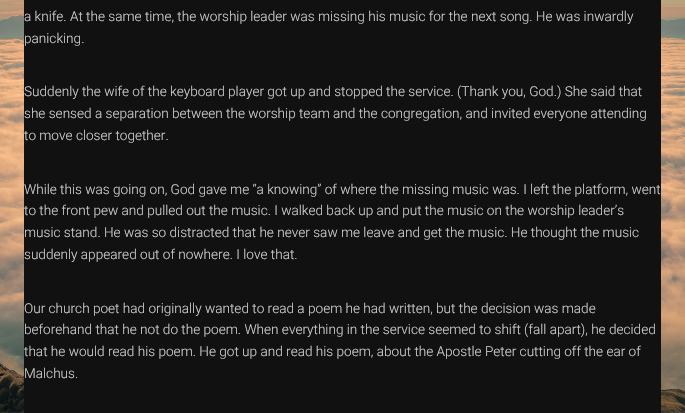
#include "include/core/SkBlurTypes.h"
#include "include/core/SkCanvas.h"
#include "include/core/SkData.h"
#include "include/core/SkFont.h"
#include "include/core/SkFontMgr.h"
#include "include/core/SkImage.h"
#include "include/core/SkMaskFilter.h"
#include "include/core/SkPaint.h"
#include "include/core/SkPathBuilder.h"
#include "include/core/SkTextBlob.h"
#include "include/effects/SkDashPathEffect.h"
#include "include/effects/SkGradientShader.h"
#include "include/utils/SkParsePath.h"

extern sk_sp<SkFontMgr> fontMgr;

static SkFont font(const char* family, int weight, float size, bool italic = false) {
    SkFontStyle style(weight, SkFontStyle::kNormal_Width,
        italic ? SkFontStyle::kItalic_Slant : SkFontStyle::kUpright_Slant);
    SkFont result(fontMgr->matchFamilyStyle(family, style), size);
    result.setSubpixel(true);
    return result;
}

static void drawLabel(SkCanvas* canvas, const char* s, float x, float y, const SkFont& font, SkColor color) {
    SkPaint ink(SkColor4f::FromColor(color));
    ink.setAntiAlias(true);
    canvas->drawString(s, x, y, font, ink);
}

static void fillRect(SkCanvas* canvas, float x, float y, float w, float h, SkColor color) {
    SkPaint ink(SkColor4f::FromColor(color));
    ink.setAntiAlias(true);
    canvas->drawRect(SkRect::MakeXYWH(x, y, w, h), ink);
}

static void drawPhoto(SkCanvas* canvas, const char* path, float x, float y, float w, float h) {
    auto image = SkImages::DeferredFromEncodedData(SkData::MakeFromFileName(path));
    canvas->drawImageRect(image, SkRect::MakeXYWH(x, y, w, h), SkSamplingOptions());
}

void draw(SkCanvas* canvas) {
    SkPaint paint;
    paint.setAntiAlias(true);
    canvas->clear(0xFFFFFFFF);
    drawPhoto(canvas, "assets/img1.png", 0, 0, 685, 413);
    fillRect(canvas, 24, 0, 637, 413, 0xFF111111);
    SkFont font1 = font("Roboto", 300, 13.6f);
    drawLabel(canvas, "a knife. At the same time, the worship leader was missing his music for the next song. He was inwardly", 24, 21, font1, 0xFFCFCFCF);
    drawLabel(canvas, "panicking.", 24, 43, font1, 0xFFCFCFCF);
    drawLabel(canvas, "Suddenly the wife of the keyboard player got up and stopped the service. (Thank you, God.) She said that", 24, 96, font1, 0xFFCFCFCF);
    drawLabel(canvas, "she sensed a separation between the worship team and the congregation, and invited everyone attending", 24, 118, font1, 0xFFCFCFCF);
    drawLabel(canvas, "to move closer together.", 24, 140, font1, 0xFFCFCFCF);
    drawLabel(canvas, "While this was going on, God gave me “a knowing” of where the missing music was. I left the platform, went", 24, 194, font1, 0xFFCFCFCF);
    drawLabel(canvas, "to the front pew and pulled out the music. I walked back up and put the music on the worship leader’s", 24, 215, font1, 0xFFCFCFCF);
    drawLabel(canvas, "music stand. He was so distracted that he never saw me leave and get the music. He thought the music", 24, 237, font1, 0xFFCFCFCF);
    drawLabel(canvas, "suddenly appeared out of nowhere. I love that.", 24, 259, font1, 0xFFCFCFCF);
    drawLabel(canvas, "Our church poet had originally wanted to read a poem he had written, but the decision was made", 24, 313, font1, 0xFFCFCFCF);
    drawLabel(canvas, "beforehand that he not do the poem. When everything in the service seemed to shift (fall apart), he decided", 24, 334, font1, 0xFFCFCFCF);
    drawLabel(canvas, "that he would read his poem. He got up and read his poem, about the Apostle Peter cutting off the ear of", 24, 356, font1, 0xFFCFCFCF);
    drawLabel(canvas, "Malchus.", 24, 378, font1, 0xFFCFCFCF);
}
